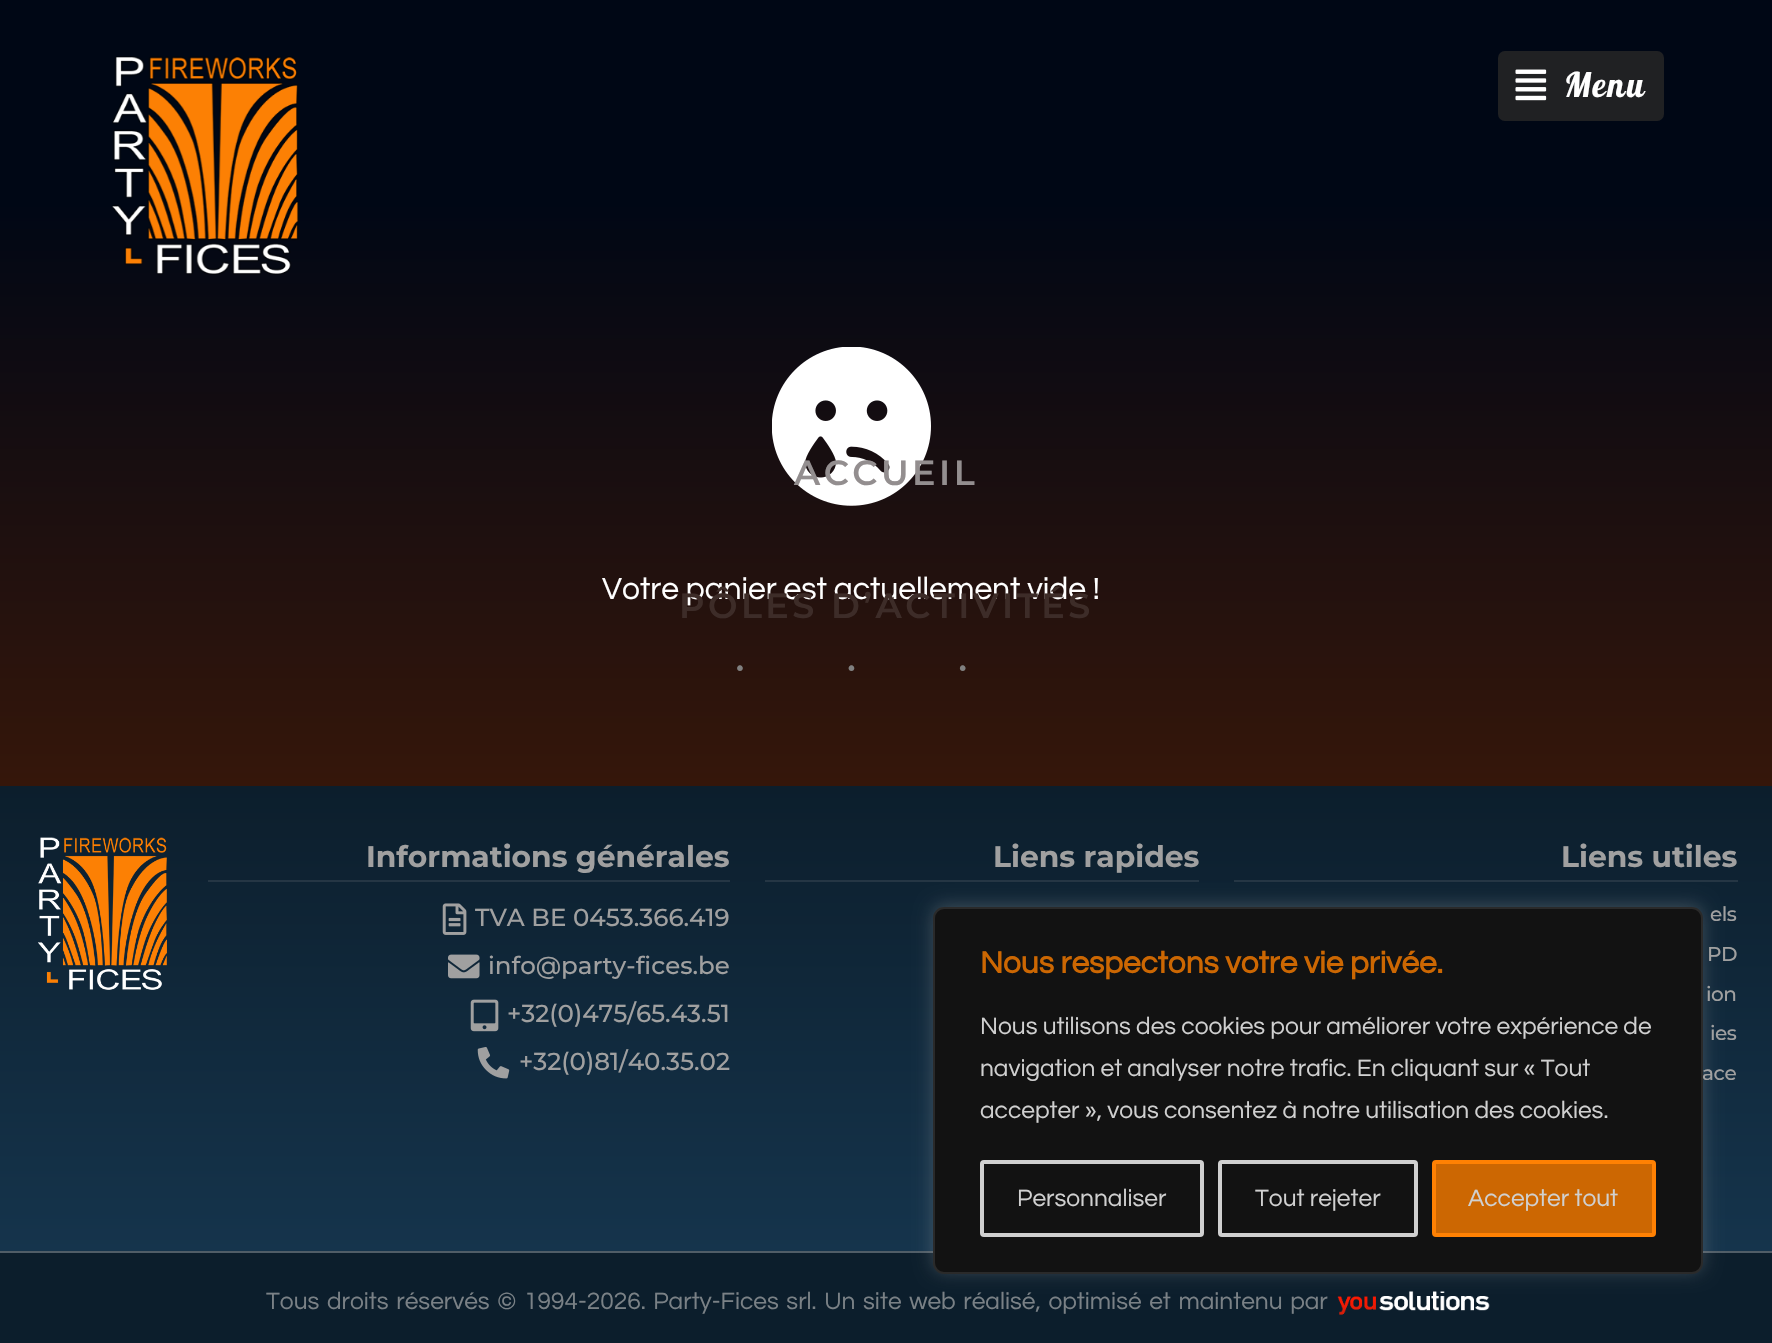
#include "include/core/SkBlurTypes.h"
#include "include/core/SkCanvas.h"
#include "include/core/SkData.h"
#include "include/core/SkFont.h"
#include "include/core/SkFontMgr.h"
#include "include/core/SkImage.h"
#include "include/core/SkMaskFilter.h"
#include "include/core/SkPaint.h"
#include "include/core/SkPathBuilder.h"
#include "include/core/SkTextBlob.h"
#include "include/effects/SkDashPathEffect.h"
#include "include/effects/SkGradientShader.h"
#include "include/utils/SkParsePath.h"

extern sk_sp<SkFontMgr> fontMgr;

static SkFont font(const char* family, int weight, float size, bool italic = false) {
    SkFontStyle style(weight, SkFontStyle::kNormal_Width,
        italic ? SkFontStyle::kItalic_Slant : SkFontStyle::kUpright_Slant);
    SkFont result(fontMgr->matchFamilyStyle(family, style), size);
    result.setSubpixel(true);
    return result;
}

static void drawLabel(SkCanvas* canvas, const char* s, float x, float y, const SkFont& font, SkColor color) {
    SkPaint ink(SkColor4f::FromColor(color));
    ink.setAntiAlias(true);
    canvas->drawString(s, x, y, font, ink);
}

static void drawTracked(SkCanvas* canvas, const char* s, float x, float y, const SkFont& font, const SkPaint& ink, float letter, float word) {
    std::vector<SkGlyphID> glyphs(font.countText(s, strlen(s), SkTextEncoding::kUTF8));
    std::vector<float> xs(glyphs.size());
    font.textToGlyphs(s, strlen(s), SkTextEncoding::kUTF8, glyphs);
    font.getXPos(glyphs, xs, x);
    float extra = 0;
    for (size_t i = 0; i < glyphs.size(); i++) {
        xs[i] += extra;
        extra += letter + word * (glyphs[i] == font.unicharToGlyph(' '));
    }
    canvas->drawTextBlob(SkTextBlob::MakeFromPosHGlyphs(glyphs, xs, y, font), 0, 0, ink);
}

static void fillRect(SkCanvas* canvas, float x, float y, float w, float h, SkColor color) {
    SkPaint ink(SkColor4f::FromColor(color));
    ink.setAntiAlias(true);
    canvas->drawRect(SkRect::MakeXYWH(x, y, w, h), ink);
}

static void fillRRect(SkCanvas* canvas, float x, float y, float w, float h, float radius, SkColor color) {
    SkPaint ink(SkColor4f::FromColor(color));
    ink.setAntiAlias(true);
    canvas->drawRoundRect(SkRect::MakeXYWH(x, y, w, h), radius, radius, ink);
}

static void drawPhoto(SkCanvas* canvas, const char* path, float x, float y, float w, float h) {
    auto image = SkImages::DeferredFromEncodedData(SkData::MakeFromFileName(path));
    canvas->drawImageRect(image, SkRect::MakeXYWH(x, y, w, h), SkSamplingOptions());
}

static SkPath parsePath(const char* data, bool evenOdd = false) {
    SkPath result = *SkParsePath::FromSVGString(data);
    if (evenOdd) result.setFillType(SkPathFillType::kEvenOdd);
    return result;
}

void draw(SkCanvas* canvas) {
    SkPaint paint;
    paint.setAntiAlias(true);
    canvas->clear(0xFFFFFFFF);
    {
        const SkColor colors[] = {0xFF000715, 0xFF682500};
        const float stops[] = {0.15f, 1};
        const SkPoint ends[] = {{886, 0}, {886, 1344}};
        paint.setShader(SkGradientShader::MakeLinear(ends, colors, stops, 2, SkTileMode::kClamp));
        paint.setAlpha(255);
    }
    canvas->drawRect(SkRect::MakeXYWH(0, 0, 1772, 786), paint);
    drawPhoto(canvas, "assets/img1.png", 112, 56, 187, 219);
    fillRRect(canvas, 1498, 51, 166, 70, 7, 0xE3242424);
    drawPhoto(canvas, "assets/img2.png", 1515, 69, 32, 32);
    SkFont font1 = font("Pattaya", 400, 34);
    paint.setShader(nullptr);
    paint.setColor(0xFFFFFFFF);
    drawTracked(canvas, "Menu", 1564, 97, font1, paint, 2, 0);
    drawPhoto(canvas, "assets/img3.png", 772, 347, 159, 159);
    SkFont font2 = font("Montserrat", 600, 35);
    paint.setColor(0xFF938E8F);
    drawTracked(canvas, "ACCUEIL", 794, 485, font2, paint, 3.5f, 0);
    SkFont font3 = font("Questrial", 400, 31.8f);
    drawLabel(canvas, "Votre panier est actuellement vide !", 602, 599, font3, 0xFFFFFFFF);
    paint.setColor(0xFF3D2C28);
    drawTracked(canvas, "PÔLES D’ACTIVITÉS", 679, 618, font2, paint, 3.5f, 0);
    SkFont font4 = font("Liberation Serif", 400, 47.75f);
    paint.setColor(0xFF808080);
    drawTracked(canvas, "···", 732, 684, font4, paint, 95.5f, 0);
    canvas->save();
    canvas->clipRect(SkRect::MakeXYWH(0, 786, 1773, 2));
    paint.setColor(0xFF0C1E2C);
    canvas->drawPath(parsePath("M887 784C225 783 1 649 0 614V789H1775V616C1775 648 1550 785 887 784Z"), paint);
    canvas->restore();
    {
        const SkColor colors[] = {0xFF0C1E2C, 0xFF15344C};
        const float stops[] = {0, 1};
        const SkPoint ends[] = {{886, 787}, {886, 1251}};
        paint.setShader(SkGradientShader::MakeLinear(ends, colors, stops, 2, SkTileMode::kClamp));
        paint.setAlpha(255);
    }
    canvas->drawRect(SkRect::MakeXYWH(0, 788, 1772, 463), paint);
    drawPhoto(canvas, "assets/img4.png", 38, 837, 129, 153);
    fillRect(canvas, 208, 880, 522, 2, 0xFF253644);
    SkFont font5 = font("Montserrat", 700, 29.75f);
    drawLabel(canvas, "Informations générales", 366, 867, font5, 0xFFA0A0A0);
    drawPhoto(canvas, "assets/img5.png", 442, 903, 25, 32);
    SkFont font6 = font("Montserrat", 500, 24.5f);
    drawLabel(canvas, "TVA BE 0453.366.419", 475, 926, font6, 0xFFA0A0A0);
    drawPhoto(canvas, "assets/img6.png", 448, 954, 32, 25);
    drawLabel(canvas, "info@party-fices.be", 488, 974, font6, 0xFFA0A0A0);
    drawPhoto(canvas, "assets/img7.png", 470, 999, 29, 33);
    drawLabel(canvas, "+32(0)475/65.43.51", 507, 1022, font6, 0xFFA0A0A0);
    drawPhoto(canvas, "assets/img8.png", 477, 1047, 33, 32);
    drawLabel(canvas, "+32(0)81/40.35.02", 519, 1070, font6, 0xFFA0A0A0);
    fillRect(canvas, 765, 880, 434, 2, 0xFF253644);
    drawLabel(canvas, "Liens rapides", 993, 867, font5, 0xFFA0A0A0);
    fillRect(canvas, 1234, 880, 504, 2, 0xFF253644);
    drawLabel(canvas, "Liens utiles", 1561, 867, font5, 0xFFA0A0A0);
    SkFont font7 = font("Montserrat", 500, 20);
    paint.setShader(nullptr);
    paint.setColor(0xFFA0A0A0);
    drawTracked(canvas, "els", 1710, 921, font7, paint, -0.5f, 0);
    drawTracked(canvas, "PD", 1707, 961, font7, paint, -0.5f, 0);
    drawTracked(canvas, "ion", 1706, 1001, font7, paint, -0.5f, 0);
    drawTracked(canvas, "ies", 1710, 1040, font7, paint, -0.5f, 0);
    drawTracked(canvas, "ace", 1702, 1080, font7, paint, -0.5f, 0);
    fillRect(canvas, 0, 1253, 1772, 90, 0xFF0C1E2C);
    fillRect(canvas, 0, 1251, 1772, 2, 0xFF505D67);
    SkFont font8 = font("Questrial", 400, 24.5f);
    paint.setColor(0xFF7A8186);
    drawTracked(canvas, "Tous droits réservés © 1994-2026. Party-Fices srl. Un site web réalisé, optimisé et maintenu par", 266, 1309, font8, paint, 0, 2.4f);
    drawPhoto(canvas, "assets/img9.png", 1337, 1291, 153, 24);
    paint.setColor(0x4DACABAB);
    paint.setMaskFilter(SkMaskFilter::MakeBlur(kNormal_SkBlurStyle, 9));
    canvas->drawRoundRect(SkRect::MakeXYWH(933, 905, 770, 367), 11, 11, paint);
    paint.setMaskFilter(nullptr);
    paint.setColor(0xFF121212);
    canvas->drawRoundRect(SkRect::MakeXYWH(934, 908, 768, 365), 10, 10, paint);
    paint.setStroke(true);
    paint.setStrokeWidth(2);
    paint.setColor(0xFF2A2A2A);
    canvas->drawRoundRect(SkRect::MakeXYWH(934, 908, 768, 365), 10, 10, paint);
    SkFont font9 = font("Questrial", 700, 31.5f);
    drawLabel(canvas, "Nous respectons votre vie privée.", 980, 973, font9, 0xFFCC6702);
    drawLabel(canvas, "Nous utilisons des cookies pour améliorer votre expérience de", 980, 1034, font8, 0xFFD0D0D0);
    drawLabel(canvas, "navigation et analyser notre trafic. En cliquant sur « Tout", 980, 1076, font8, 0xFFD0D0D0);
    drawLabel(canvas, "accepter », vous consentez à notre utilisation des cookies.", 980, 1118, font8, 0xFFD0D0D0);
    paint.setStrokeWidth(4);
    paint.setColor(0xFFD0D0D0);
    canvas->drawRoundRect(SkRect::MakeXYWH(982, 1162, 220, 73), 2, 2, paint);
    drawLabel(canvas, "Personnaliser", 1017, 1206, font8, 0xFFD0D0D0);
    canvas->drawRoundRect(SkRect::MakeXYWH(1220, 1162, 196, 73), 2, 2, paint);
    drawLabel(canvas, "Tout rejeter", 1255, 1206, font8, 0xFFD0D0D0);
    paint.setStroke(false);
    paint.setColor(0xFFCC6702);
    canvas->drawRoundRect(SkRect::MakeXYWH(1434, 1162, 220, 73), 2, 2, paint);
    paint.setStroke(true);
    paint.setColor(0xFFFF8103);
    canvas->drawRoundRect(SkRect::MakeXYWH(1434, 1162, 220, 73), 2, 2, paint);
    drawLabel(canvas, "Accepter tout", 1468, 1206, font8, 0xFFD0D0D0);
}
